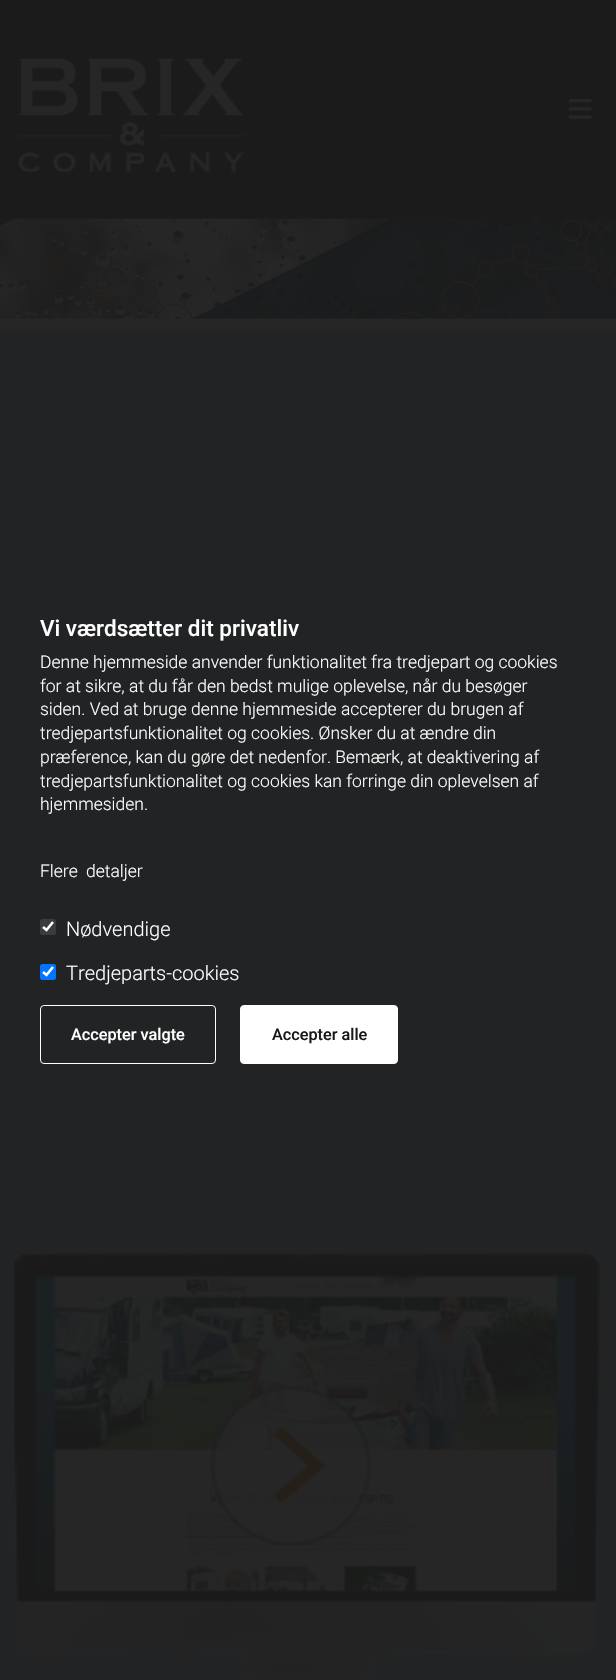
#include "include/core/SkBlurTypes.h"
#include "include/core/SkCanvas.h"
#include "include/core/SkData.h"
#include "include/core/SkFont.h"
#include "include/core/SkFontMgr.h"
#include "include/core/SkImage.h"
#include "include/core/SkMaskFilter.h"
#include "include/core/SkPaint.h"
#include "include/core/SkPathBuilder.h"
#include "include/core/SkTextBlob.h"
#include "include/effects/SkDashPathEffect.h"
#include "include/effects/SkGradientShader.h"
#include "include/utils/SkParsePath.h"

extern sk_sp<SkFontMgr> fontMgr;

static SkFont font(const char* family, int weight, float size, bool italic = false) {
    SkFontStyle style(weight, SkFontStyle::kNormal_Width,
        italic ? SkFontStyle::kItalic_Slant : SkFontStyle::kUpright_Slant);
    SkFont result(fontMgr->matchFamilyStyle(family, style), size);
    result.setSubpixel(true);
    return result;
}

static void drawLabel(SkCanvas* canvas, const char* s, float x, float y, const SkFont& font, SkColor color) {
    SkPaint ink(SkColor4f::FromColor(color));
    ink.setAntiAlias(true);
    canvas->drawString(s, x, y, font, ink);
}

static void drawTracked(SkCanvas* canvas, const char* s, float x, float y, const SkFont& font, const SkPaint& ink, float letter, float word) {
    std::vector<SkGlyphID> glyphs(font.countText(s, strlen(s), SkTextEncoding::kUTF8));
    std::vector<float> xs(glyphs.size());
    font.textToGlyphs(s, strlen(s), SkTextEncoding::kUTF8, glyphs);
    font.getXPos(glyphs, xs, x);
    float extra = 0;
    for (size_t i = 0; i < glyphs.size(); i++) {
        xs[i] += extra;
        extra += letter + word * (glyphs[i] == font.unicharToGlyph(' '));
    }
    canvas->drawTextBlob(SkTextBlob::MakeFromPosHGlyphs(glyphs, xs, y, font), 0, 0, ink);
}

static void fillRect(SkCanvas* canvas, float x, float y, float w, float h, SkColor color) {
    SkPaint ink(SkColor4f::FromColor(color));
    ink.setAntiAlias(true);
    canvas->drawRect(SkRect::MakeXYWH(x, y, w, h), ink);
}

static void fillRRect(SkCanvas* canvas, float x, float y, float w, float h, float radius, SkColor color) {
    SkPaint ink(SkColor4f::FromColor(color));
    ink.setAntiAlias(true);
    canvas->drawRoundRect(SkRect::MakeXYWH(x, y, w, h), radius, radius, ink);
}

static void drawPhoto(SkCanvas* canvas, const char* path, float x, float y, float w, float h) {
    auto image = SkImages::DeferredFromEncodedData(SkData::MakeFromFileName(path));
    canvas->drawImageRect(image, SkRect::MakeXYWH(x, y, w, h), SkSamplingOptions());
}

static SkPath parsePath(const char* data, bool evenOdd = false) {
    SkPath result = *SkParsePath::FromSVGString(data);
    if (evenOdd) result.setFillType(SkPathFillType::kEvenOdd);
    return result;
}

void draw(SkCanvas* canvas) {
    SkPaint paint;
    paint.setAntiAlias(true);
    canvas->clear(0xFF262626);
    fillRect(canvas, 0, 0, 616, 219, 0xFF1B1B1B);
    drawPhoto(canvas, "assets/img1.png", 18, 58, 226, 115);
    drawPhoto(canvas, "assets/img2.png", 568, 99, 24, 20);
    drawPhoto(canvas, "assets/img3.png", 0, 218, 616, 101);
    fillRect(canvas, 0, 331, 616, 1349, 0xFF222324);
    drawPhoto(canvas, "assets/img4.png", 12, 1252, 589, 428);
    SkFont font1 = font("Roboto", 500, 22.5f);
    drawLabel(canvas, "Vi værdsætter dit privatliv", 40, 636, font1, 0xFFFFFFFF);
    SkFont font2 = font("Roboto", 300, 17.5f);
    drawLabel(canvas, "Denne hjemmeside anvender funktionalitet fra tredjepart og cookies", 40, 668, font2, 0xFFFFFFFF);
    drawLabel(canvas, "for at sikre, at du får den bedst mulige oplevelse, når du besøger", 40, 692, font2, 0xFFFFFFFF);
    drawLabel(canvas, "siden. Ved at bruge denne hjemmeside accepterer du brugen af", 40, 715, font2, 0xFFFFFFFF);
    drawLabel(canvas, "tredjepartsfunktionalitet og cookies. Ønsker du at ændre din", 40, 739, font2, 0xFFFFFFFF);
    drawLabel(canvas, "præference, kan du gøre det nedenfor. Bemærk, at deaktivering af", 40, 763, font2, 0xFFFFFFFF);
    drawLabel(canvas, "tredjepartsfunktionalitet og cookies kan forringe din oplevelsen af", 40, 787, font2, 0xFFFFFFFF);
    drawLabel(canvas, "hjemmesiden.", 40, 810, font2, 0xFFFFFFFF);
    paint.setColor(0xFFFFFFFF);
    drawTracked(canvas, "Flere detaljer", 40, 877, font2, paint, 0, 4);
    fillRRect(canvas, 40, 919, 16, 16, 2.5f, 0x4D767676);
    paint.setStroke(true);
    paint.setStrokeWidth(2.6f);
    canvas->drawPath(parsePath("M43 927L46.5 930L53 922"), paint);
    SkFont font3 = font("Roboto", 300, 20);
    drawLabel(canvas, "Nødvendige", 66, 936, font3, 0xFFFFFFFF);
    fillRRect(canvas, 40, 964, 16, 16, 2.5f, 0xFF0075FF);
    canvas->drawPath(parsePath("M43 972L46.5 975L53 967"), paint);
    drawLabel(canvas, "Tredjeparts-cookies", 66, 980, font3, 0xFFFFFFFF);
    paint.setStrokeWidth(1);
    canvas->drawRoundRect(SkRect::MakeXYWH(40.5f, 1005.5f, 175, 58), 3.5f, 3.5f, paint);
    SkFont font4 = font("Roboto", 500, 16.25f);
    drawLabel(canvas, "Accepter valgte", 71, 1040, font4, 0xFFFFFFFF);
    paint.setStroke(false);
    canvas->drawRoundRect(SkRect::MakeXYWH(240.5f, 1005.5f, 157, 58), 3.5f, 3.5f, paint);
    paint.setStroke(true);
    canvas->drawRoundRect(SkRect::MakeXYWH(240.5f, 1005.5f, 157, 58), 3.5f, 3.5f, paint);
    drawLabel(canvas, "Accepter alle", 272, 1040, font4, 0xFF181818);
}
